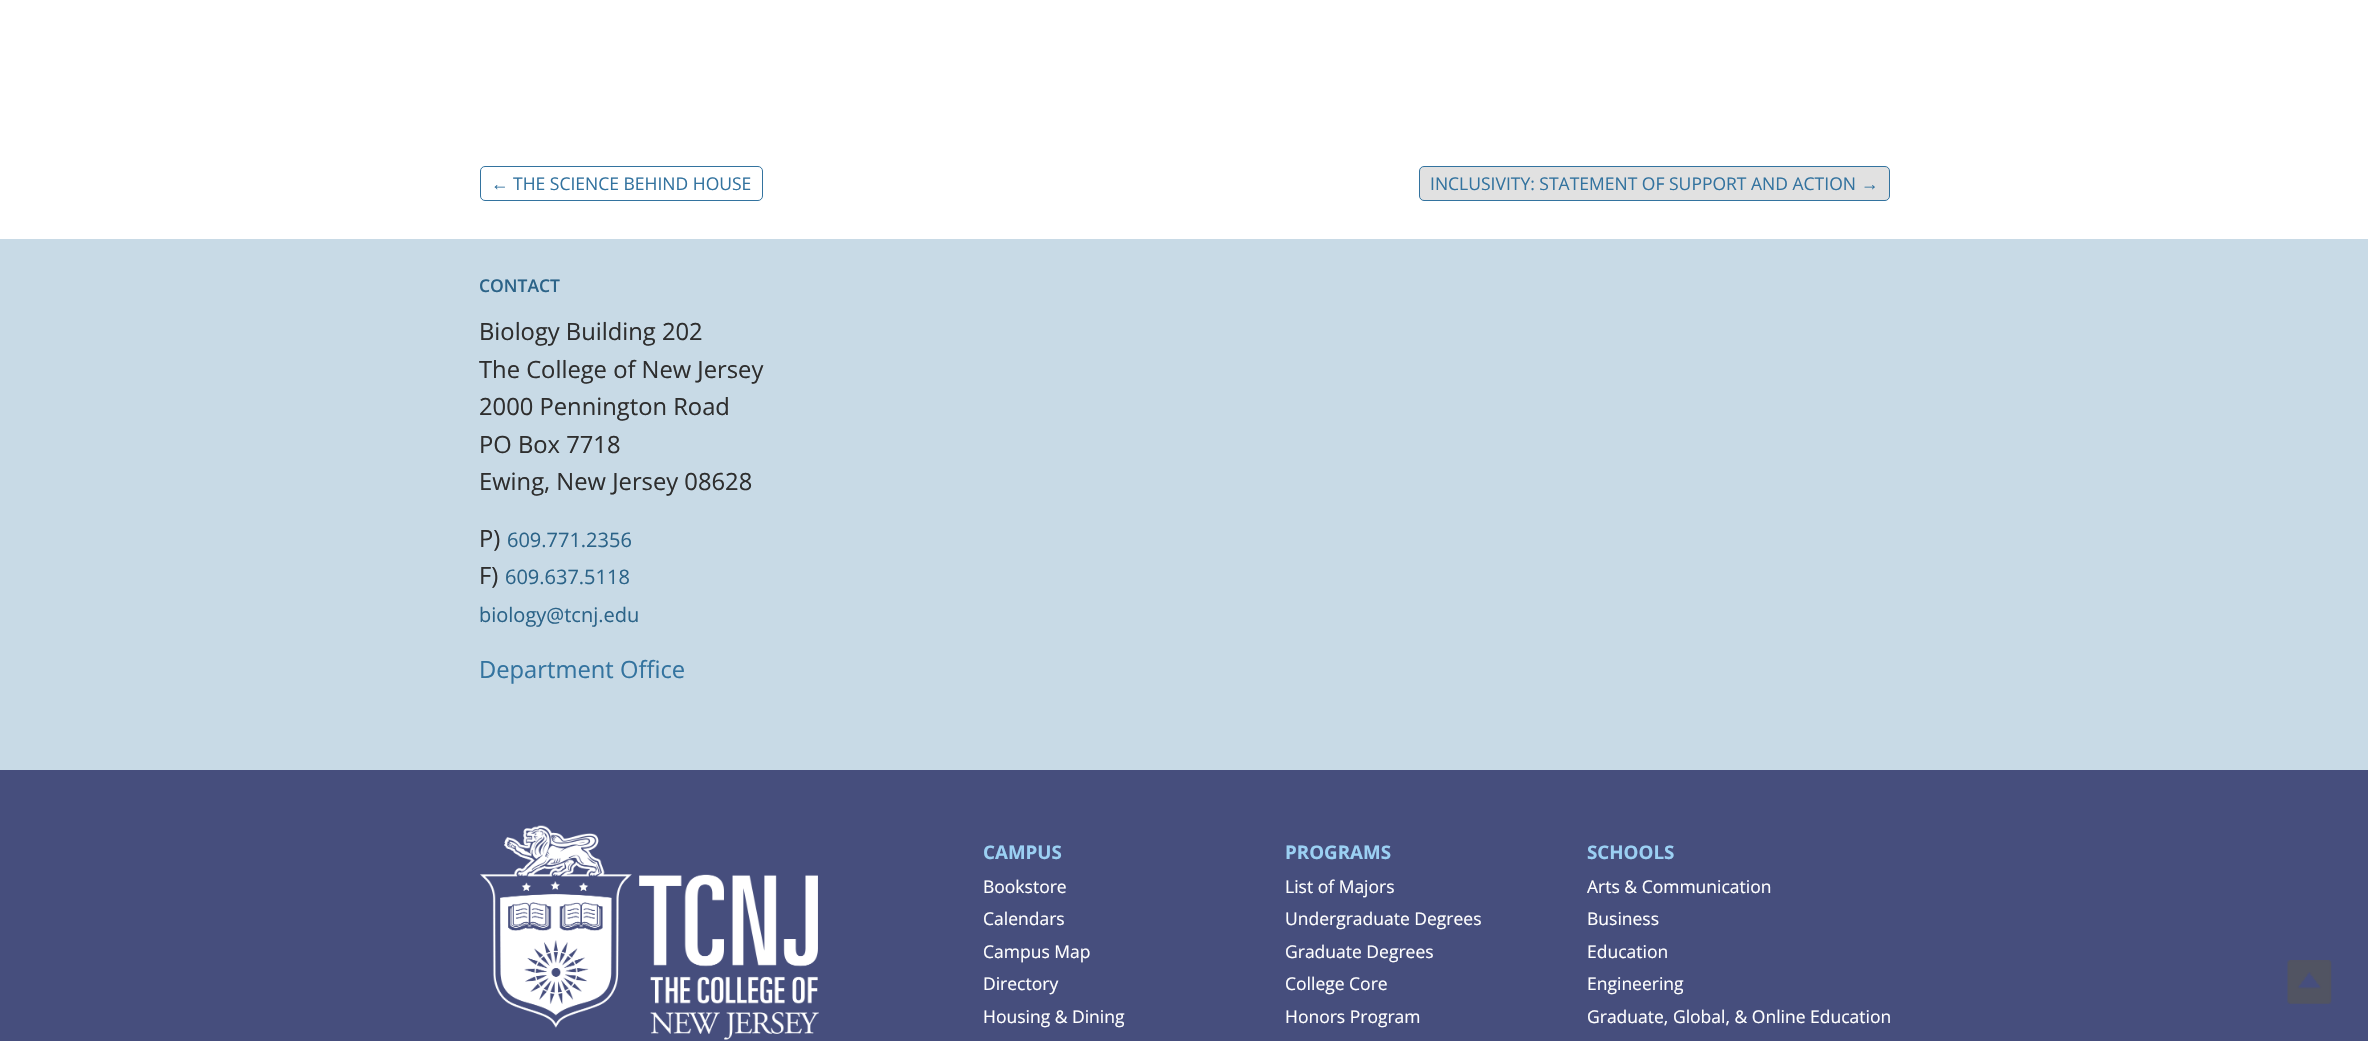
#include "include/core/SkBlurTypes.h"
#include "include/core/SkCanvas.h"
#include "include/core/SkData.h"
#include "include/core/SkFont.h"
#include "include/core/SkFontMgr.h"
#include "include/core/SkImage.h"
#include "include/core/SkMaskFilter.h"
#include "include/core/SkPaint.h"
#include "include/core/SkPathBuilder.h"
#include "include/core/SkTextBlob.h"
#include "include/effects/SkDashPathEffect.h"
#include "include/effects/SkGradientShader.h"
#include "include/utils/SkParsePath.h"

extern sk_sp<SkFontMgr> fontMgr;

static SkFont font(const char* family, int weight, float size, bool italic = false) {
    SkFontStyle style(weight, SkFontStyle::kNormal_Width,
        italic ? SkFontStyle::kItalic_Slant : SkFontStyle::kUpright_Slant);
    SkFont result(fontMgr->matchFamilyStyle(family, style), size);
    result.setSubpixel(true);
    return result;
}

static void drawLabel(SkCanvas* canvas, const char* s, float x, float y, const SkFont& font, SkColor color) {
    SkPaint ink(SkColor4f::FromColor(color));
    ink.setAntiAlias(true);
    canvas->drawString(s, x, y, font, ink);
}

static void fillRect(SkCanvas* canvas, float x, float y, float w, float h, SkColor color) {
    SkPaint ink(SkColor4f::FromColor(color));
    ink.setAntiAlias(true);
    canvas->drawRect(SkRect::MakeXYWH(x, y, w, h), ink);
}

static void drawPhoto(SkCanvas* canvas, const char* path, float x, float y, float w, float h) {
    auto image = SkImages::DeferredFromEncodedData(SkData::MakeFromFileName(path));
    canvas->drawImageRect(image, SkRect::MakeXYWH(x, y, w, h), SkSamplingOptions());
}

void draw(SkCanvas* canvas) {
    SkPaint paint;
    paint.setAntiAlias(true);
    canvas->clear(0xFFFFFFFF);
    paint.setStroke(true);
    paint.setStrokeWidth(1);
    paint.setColor(0xFF33739F);
    canvas->drawRoundRect(SkRect::MakeXYWH(480.5f, 166.5f, 282, 34), 4.5f, 4.5f, paint);
    SkFont font1 = font("Liberation Sans", 400, 17.5f);
    drawLabel(canvas, "←", 491, 190, font1, 0xFF33739F);
    SkFont font2 = font("Open Sans", 400, 17.5f);
    drawLabel(canvas, "THE SCIENCE BEHIND HOUSE", 513, 190, font2, 0xFF33739F);
    paint.setStroke(false);
    paint.setColor(0xFFE1E1E1);
    canvas->drawRoundRect(SkRect::MakeXYWH(1419.5f, 166.5f, 470, 34), 4.5f, 4.5f, paint);
    paint.setStroke(true);
    paint.setColor(0xFF33739F);
    canvas->drawRoundRect(SkRect::MakeXYWH(1419.5f, 166.5f, 470, 34), 4.5f, 4.5f, paint);
    drawLabel(canvas, "INCLUSIVITY: STATEMENT OF SUPPORT AND ACTION", 1430, 190, font2, 0xFF33739F);
    drawLabel(canvas, "→", 1861, 190, font1, 0xFF33739F);
    fillRect(canvas, 0, 239, 2368, 531, 0xFFC8DAE6);
    SkFont font3 = font("Open Sans", 600, 17.5f);
    drawLabel(canvas, "CONTACT", 479, 292, font3, 0xFF2B6388);
    SkFont font4 = font("Open Sans", 400, 23.75f);
    drawLabel(canvas, "Biology Building 202", 479, 340, font4, 0xFF2E2E2E);
    drawLabel(canvas, "The College of New Jersey", 479, 378, font4, 0xFF2E2E2E);
    drawLabel(canvas, "2000 Pennington Road", 479, 415, font4, 0xFF2E2E2E);
    drawLabel(canvas, "PO Box 7718", 479, 453, font4, 0xFF2E2E2E);
    drawLabel(canvas, "Ewing, New Jersey 08628", 479, 490, font4, 0xFF2E2E2E);
    drawLabel(canvas, "P)", 479, 547, font4, 0xFF2E2E2E);
    SkFont font5 = font("Open Sans", 400, 20);
    drawLabel(canvas, "609.771.2356", 507, 547, font5, 0xFF2B6388);
    drawLabel(canvas, "F)", 479, 584, font4, 0xFF2E2E2E);
    drawLabel(canvas, "609.637.5118", 505, 584, font5, 0xFF2B6388);
    drawLabel(canvas, "biology@tcnj.edu", 479, 622, font5, 0xFF2B6388);
    drawLabel(canvas, "Department Office", 479, 678, font4, 0xFF33739F);
    fillRect(canvas, 0, 770, 2368, 271, 0xFF464E7D);
    drawPhoto(canvas, "assets/img1.png", 480, 825, 339, 215);
    SkFont font6 = font("Open Sans", 700, 18.75f);
    drawLabel(canvas, "CAMPUS", 983, 859, font6, 0xFF9BD0F3);
    drawLabel(canvas, "Bookstore", 983, 893, font2, 0xFFFFFFFF);
    drawLabel(canvas, "Calendars", 983, 925, font2, 0xFFFFFFFF);
    drawLabel(canvas, "Campus Map", 983, 958, font2, 0xFFFFFFFF);
    drawLabel(canvas, "Directory", 983, 990, font2, 0xFFFFFFFF);
    drawLabel(canvas, "Housing & Dining", 983, 1023, font2, 0xFFFFFFFF);
    drawLabel(canvas, "PROGRAMS", 1285, 859, font6, 0xFF9BD0F3);
    drawLabel(canvas, "List of Majors", 1285, 893, font2, 0xFFFFFFFF);
    drawLabel(canvas, "Undergraduate Degrees", 1285, 925, font2, 0xFFFFFFFF);
    drawLabel(canvas, "Graduate Degrees", 1285, 958, font2, 0xFFFFFFFF);
    drawLabel(canvas, "College Core", 1285, 990, font2, 0xFFFFFFFF);
    drawLabel(canvas, "Honors Program", 1285, 1023, font2, 0xFFFFFFFF);
    drawLabel(canvas, "SCHOOLS", 1587, 859, font6, 0xFF9BD0F3);
    drawLabel(canvas, "Arts & Communication", 1587, 893, font2, 0xFFFFFFFF);
    drawLabel(canvas, "Business", 1587, 925, font2, 0xFFFFFFFF);
    drawLabel(canvas, "Education", 1587, 958, font2, 0xFFFFFFFF);
    drawLabel(canvas, "Engineering", 1587, 990, font2, 0xFFFFFFFF);
    drawLabel(canvas, "Graduate, Global, & Online Education", 1587, 1023, font2, 0xFFFFFFFF);
    drawPhoto(canvas, "assets/img2.png", 2287, 960, 45, 44);
}
